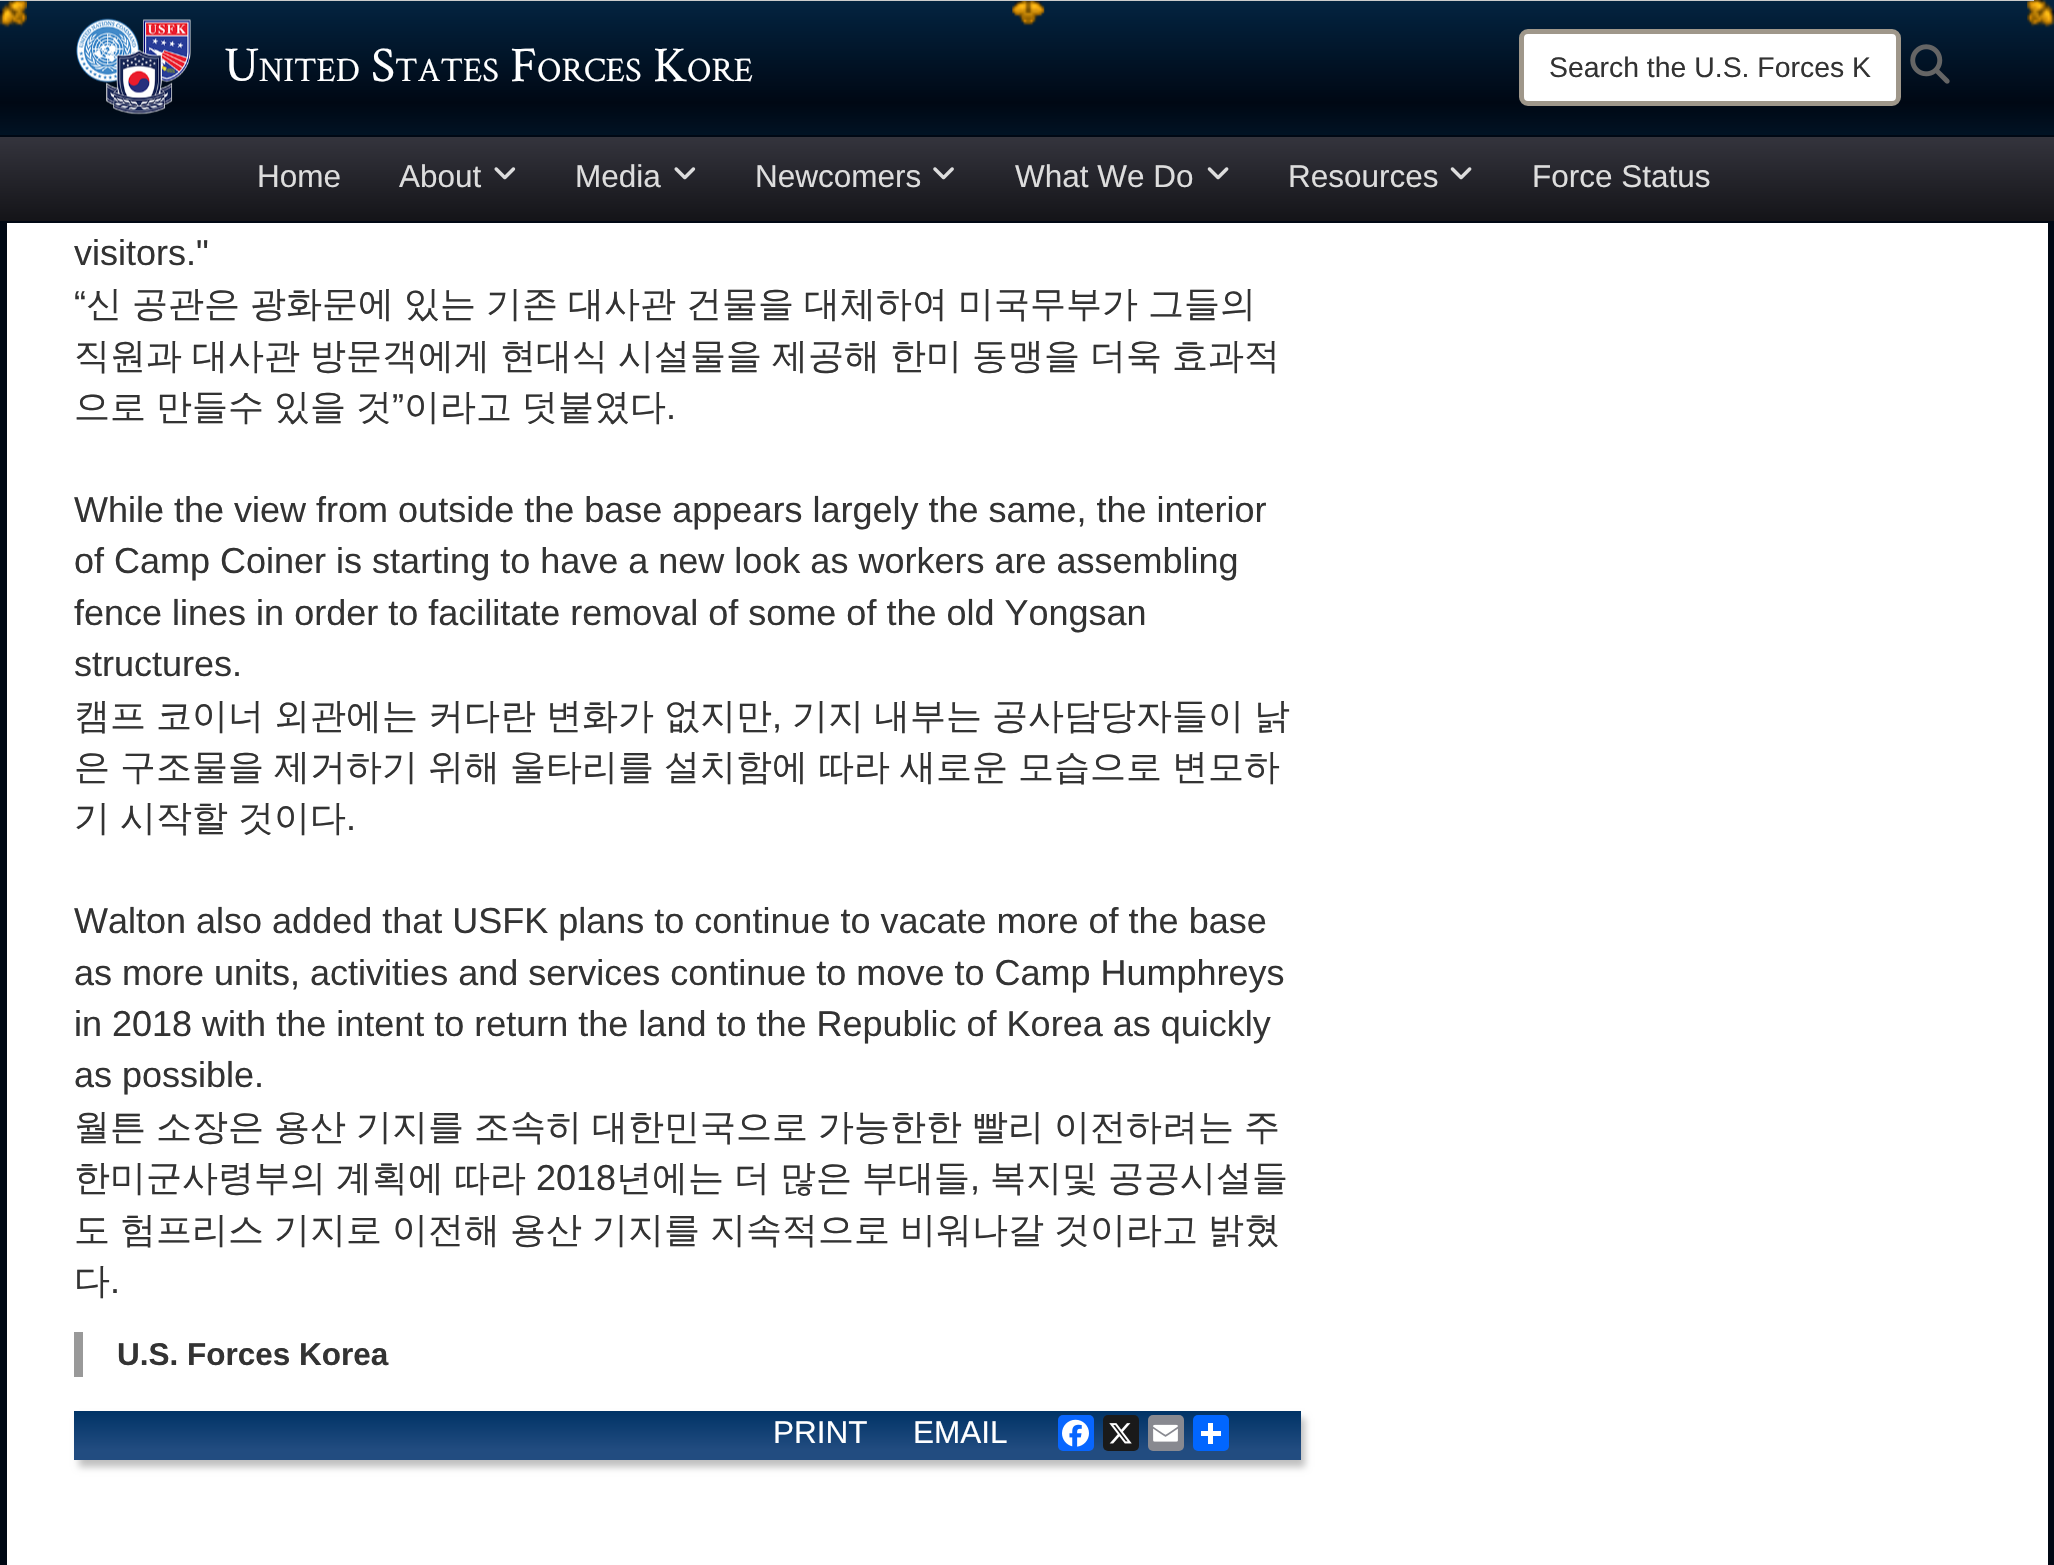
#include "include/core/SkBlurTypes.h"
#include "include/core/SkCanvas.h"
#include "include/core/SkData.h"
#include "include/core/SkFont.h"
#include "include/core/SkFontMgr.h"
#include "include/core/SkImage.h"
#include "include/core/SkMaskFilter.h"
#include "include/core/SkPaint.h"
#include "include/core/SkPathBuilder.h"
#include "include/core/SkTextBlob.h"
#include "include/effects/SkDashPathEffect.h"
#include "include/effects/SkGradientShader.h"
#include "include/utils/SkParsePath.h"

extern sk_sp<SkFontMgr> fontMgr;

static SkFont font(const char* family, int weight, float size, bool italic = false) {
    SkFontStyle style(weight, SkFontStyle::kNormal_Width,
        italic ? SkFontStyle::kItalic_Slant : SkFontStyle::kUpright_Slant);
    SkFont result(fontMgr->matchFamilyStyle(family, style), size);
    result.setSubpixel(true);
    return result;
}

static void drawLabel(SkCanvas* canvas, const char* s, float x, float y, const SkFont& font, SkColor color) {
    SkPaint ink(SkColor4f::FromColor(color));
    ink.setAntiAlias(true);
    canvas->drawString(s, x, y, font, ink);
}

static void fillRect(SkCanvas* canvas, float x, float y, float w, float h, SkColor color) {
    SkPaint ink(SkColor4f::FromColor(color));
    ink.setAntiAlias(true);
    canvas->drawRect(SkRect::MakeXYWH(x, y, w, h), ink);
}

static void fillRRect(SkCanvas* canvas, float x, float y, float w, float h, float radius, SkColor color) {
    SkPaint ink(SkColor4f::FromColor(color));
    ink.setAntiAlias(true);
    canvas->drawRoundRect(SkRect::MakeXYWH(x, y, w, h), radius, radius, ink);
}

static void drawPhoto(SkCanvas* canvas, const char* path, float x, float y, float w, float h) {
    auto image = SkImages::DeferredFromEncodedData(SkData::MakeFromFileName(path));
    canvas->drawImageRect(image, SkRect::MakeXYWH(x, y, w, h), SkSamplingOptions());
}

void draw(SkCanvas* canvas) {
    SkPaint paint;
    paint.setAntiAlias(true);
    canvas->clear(0xFF000814);
    {
        const SkColor colors[] = {0xFF032441, 0xFF000814, 0xFF011324};
        const float stops[] = {0, 0.76f, 1};
        const SkPoint ends[] = {{1027, 0}, {1027, 135}};
        paint.setShader(SkGradientShader::MakeLinear(ends, colors, stops, 3, SkTileMode::kClamp));
        paint.setAlpha(255);
    }
    canvas->drawRect(SkRect::MakeXYWH(0, 0, 2054, 135), paint);
    drawPhoto(canvas, "assets/img3.png", 2027, 0, 27, 28);
    fillRect(canvas, 0, 0, 2034, 1, 0xFFCCCCCC);
    drawPhoto(canvas, "assets/img1.png", 1012, 1, 33, 25);
    drawPhoto(canvas, "assets/img2.png", 0, 1, 27, 27);
    drawPhoto(canvas, "assets/img4.png", 76, 18, 115, 97);
    SkFont font1 = font("Crimson Text", 400, 50);
    drawLabel(canvas, "U", 224, 81, font1, 0xFFFFFFFF);
    SkFont font2 = font("Crimson Text", 400, 34.5f);
    drawLabel(canvas, "NITED", 259, 81, font2, 0xFFFFFFFF);
    drawLabel(canvas, "S", 371, 81, font1, 0xFFFFFFFF);
    drawLabel(canvas, "TATES", 395, 81, font2, 0xFFFFFFFF);
    drawLabel(canvas, "F", 510, 81, font1, 0xFFFFFFFF);
    drawLabel(canvas, "ORCES", 537, 81, font2, 0xFFFFFFFF);
    drawLabel(canvas, "K", 653, 81, font1, 0xFFFFFFFF);
    drawLabel(canvas, "ORE", 687, 81, font2, 0xFFFFFFFF);
    paint.setShader(nullptr);
    paint.setColor(0xFFFFFFFF);
    canvas->drawRoundRect(SkRect::MakeXYWH(1521.5f, 31.5f, 377, 72), 6.5f, 6.5f, paint);
    paint.setStroke(true);
    paint.setStrokeWidth(5);
    paint.setColor(0xFF9F978A);
    canvas->drawRoundRect(SkRect::MakeXYWH(1521.5f, 31.5f, 377, 72), 6.5f, 6.5f, paint);
    SkFont font3 = font("Liberation Sans", 400, 28.4f);
    drawLabel(canvas, "Search the U.S. Forces K", 1549, 77, font3, 0xFF333333);
    drawPhoto(canvas, "assets/img5.png", 1910, 44, 40, 40);
    paint.setStroke(false);
    {
        const SkColor colors[] = {0xFF34343D, 0xFF141418};
        const float stops[] = {0, 1};
        const SkPoint ends[] = {{1027, 137}, {1027, 221}};
        paint.setShader(SkGradientShader::MakeLinear(ends, colors, stops, 2, SkTileMode::kClamp));
        paint.setAlpha(255);
    }
    canvas->drawRect(SkRect::MakeXYWH(0, 137, 2054, 84), paint);
    SkFont font4 = font("Liberation Sans", 400, 31.5f);
    drawLabel(canvas, "Home", 257, 187, font4, 0xFFDDDDDD);
    drawLabel(canvas, "About", 399, 187, font4, 0xFFDDDDDD);
    drawPhoto(canvas, "assets/img6.png", 494, 167, 22, 13);
    drawLabel(canvas, "Media", 575, 187, font4, 0xFFDDDDDD);
    drawPhoto(canvas, "assets/img6.png", 674, 167, 22, 13);
    drawLabel(canvas, "Newcomers", 755, 187, font4, 0xFFDDDDDD);
    drawPhoto(canvas, "assets/img7.png", 933, 167, 21, 13);
    drawLabel(canvas, "What We Do", 1015, 187, font4, 0xFFDDDDDD);
    drawPhoto(canvas, "assets/img8.png", 1207, 167, 22, 13);
    drawLabel(canvas, "Resources", 1288, 187, font4, 0xFFDDDDDD);
    drawPhoto(canvas, "assets/img8.png", 1450, 167, 22, 13);
    drawLabel(canvas, "Force Status", 1532, 187, font4, 0xFFDDDDDD);
    fillRect(canvas, 7, 223, 2041, 1342, 0xFFFFFFFF);
    SkFont font5 = font("Liberation Sans", 400, 36);
    drawLabel(canvas, "visitors.\"", 74, 265, font5, 0xFF333333);
    drawLabel(canvas, "“", 74, 316, font5, 0xFF333333);
    SkFont font6 = font("WenQuanYi Zen Hei", 500, 36);
    drawLabel(canvas, "신", 86, 316, font6, 0xFF333333);
    drawLabel(canvas, "공관은", 132, 316, font6, 0xFF333333);
    drawLabel(canvas, "광화문에", 250, 316, font6, 0xFF333333);
    drawLabel(canvas, "있는", 404, 316, font6, 0xFF333333);
    drawLabel(canvas, "기존", 486, 316, font6, 0xFF333333);
    drawLabel(canvas, "대사관", 568, 316, font6, 0xFF333333);
    drawLabel(canvas, "건물을", 686, 316, font6, 0xFF333333);
    drawLabel(canvas, "대체하여", 804, 316, font6, 0xFF333333);
    drawLabel(canvas, "미국무부가", 958, 316, font6, 0xFF333333);
    drawLabel(canvas, "그들의", 1148, 316, font6, 0xFF333333);
    drawLabel(canvas, "직원과", 74, 368, font6, 0xFF333333);
    drawLabel(canvas, "대사관", 192, 368, font6, 0xFF333333);
    drawLabel(canvas, "방문객에게", 310, 368, font6, 0xFF333333);
    drawLabel(canvas, "현대식", 500, 368, font6, 0xFF333333);
    drawLabel(canvas, "시설물을", 618, 368, font6, 0xFF333333);
    drawLabel(canvas, "제공해", 772, 368, font6, 0xFF333333);
    drawLabel(canvas, "한미", 890, 368, font6, 0xFF333333);
    drawLabel(canvas, "동맹을", 972, 368, font6, 0xFF333333);
    drawLabel(canvas, "더욱", 1090, 368, font6, 0xFF333333);
    drawLabel(canvas, "효과적", 1172, 368, font6, 0xFF333333);
    drawLabel(canvas, "으로", 74, 419, font6, 0xFF333333);
    drawLabel(canvas, "만들수", 156, 419, font6, 0xFF333333);
    drawLabel(canvas, "있을", 274, 419, font6, 0xFF333333);
    drawLabel(canvas, "것", 356, 419, font6, 0xFF333333);
    drawLabel(canvas, "”", 392, 419, font5, 0xFF333333);
    drawLabel(canvas, "이라고", 404, 419, font6, 0xFF333333);
    drawLabel(canvas, "덧붙였다", 522, 419, font6, 0xFF333333);
    drawLabel(canvas, ".", 666, 419, font5, 0xFF333333);
    drawLabel(canvas, "While the view from outside the base appears largely the same, the interior", 74, 522, font5, 0xFF333333);
    drawLabel(canvas, "of Camp Coiner is starting to have a new look as workers are assembling", 74, 573, font5, 0xFF333333);
    drawLabel(canvas, "fence lines in order to facilitate removal of some of the old Yongsan", 74, 625, font5, 0xFF333333);
    drawLabel(canvas, "structures.", 74, 676, font5, 0xFF333333);
    drawLabel(canvas, "캠프", 74, 728, font6, 0xFF333333);
    drawLabel(canvas, "코이너", 156, 728, font6, 0xFF333333);
    drawLabel(canvas, "외관에는", 274, 728, font6, 0xFF333333);
    drawLabel(canvas, "커다란", 428, 728, font6, 0xFF333333);
    drawLabel(canvas, "변화가", 546, 728, font6, 0xFF333333);
    drawLabel(canvas, "없지만", 664, 728, font6, 0xFF333333);
    drawLabel(canvas, ",", 772, 728, font5, 0xFF333333);
    drawLabel(canvas, "기지", 792, 728, font6, 0xFF333333);
    drawLabel(canvas, "내부는", 874, 728, font6, 0xFF333333);
    drawLabel(canvas, "공사담당자들이", 992, 728, font6, 0xFF333333);
    drawLabel(canvas, "낡", 1254, 728, font6, 0xFF333333);
    drawLabel(canvas, "은", 74, 779, font6, 0xFF333333);
    drawLabel(canvas, "구조물을", 120, 779, font6, 0xFF333333);
    drawLabel(canvas, "제거하기", 274, 779, font6, 0xFF333333);
    drawLabel(canvas, "위해", 428, 779, font6, 0xFF333333);
    drawLabel(canvas, "울타리를", 510, 779, font6, 0xFF333333);
    drawLabel(canvas, "설치함에", 664, 779, font6, 0xFF333333);
    drawLabel(canvas, "따라", 818, 779, font6, 0xFF333333);
    drawLabel(canvas, "새로운", 900, 779, font6, 0xFF333333);
    drawLabel(canvas, "모습으로", 1018, 779, font6, 0xFF333333);
    drawLabel(canvas, "변모하", 1172, 779, font6, 0xFF333333);
    drawLabel(canvas, "기", 74, 830, font6, 0xFF333333);
    drawLabel(canvas, "시작할", 120, 830, font6, 0xFF333333);
    drawLabel(canvas, "것이다", 238, 830, font6, 0xFF333333);
    drawLabel(canvas, ".", 346, 830, font5, 0xFF333333);
    drawLabel(canvas, "Walton also added that USFK plans to continue to vacate more of the base", 74, 933, font5, 0xFF333333);
    drawLabel(canvas, "as more units, activities and services continue to move to Camp Humphreys", 74, 985, font5, 0xFF333333);
    drawLabel(canvas, "in 2018 with the intent to return the land to the Republic of Korea as quickly", 74, 1036, font5, 0xFF333333);
    drawLabel(canvas, "as possible.", 74, 1087, font5, 0xFF333333);
    drawLabel(canvas, "월튼", 74, 1139, font6, 0xFF333333);
    drawLabel(canvas, "소장은", 156, 1139, font6, 0xFF333333);
    drawLabel(canvas, "용산", 274, 1139, font6, 0xFF333333);
    drawLabel(canvas, "기지를", 356, 1139, font6, 0xFF333333);
    drawLabel(canvas, "조속히", 474, 1139, font6, 0xFF333333);
    drawLabel(canvas, "대한민국으로", 592, 1139, font6, 0xFF333333);
    drawLabel(canvas, "가능한한", 818, 1139, font6, 0xFF333333);
    drawLabel(canvas, "빨리", 972, 1139, font6, 0xFF333333);
    drawLabel(canvas, "이전하려는", 1054, 1139, font6, 0xFF333333);
    drawLabel(canvas, "주", 1244, 1139, font6, 0xFF333333);
    drawLabel(canvas, "한미군사령부의", 74, 1190, font6, 0xFF333333);
    drawLabel(canvas, "계획에", 336, 1190, font6, 0xFF333333);
    drawLabel(canvas, "따라", 454, 1190, font6, 0xFF333333);
    drawLabel(canvas, "2018", 536, 1190, font5, 0xFF333333);
    drawLabel(canvas, "년에는", 616, 1190, font6, 0xFF333333);
    drawLabel(canvas, "더", 734, 1190, font6, 0xFF333333);
    drawLabel(canvas, "많은", 780, 1190, font6, 0xFF333333);
    drawLabel(canvas, "부대들", 862, 1190, font6, 0xFF333333);
    drawLabel(canvas, ",", 970, 1190, font5, 0xFF333333);
    drawLabel(canvas, "복지및", 990, 1190, font6, 0xFF333333);
    drawLabel(canvas, "공공시설들", 1108, 1190, font6, 0xFF333333);
    drawLabel(canvas, "도", 74, 1242, font6, 0xFF333333);
    drawLabel(canvas, "험프리스", 120, 1242, font6, 0xFF333333);
    drawLabel(canvas, "기지로", 274, 1242, font6, 0xFF333333);
    drawLabel(canvas, "이전해", 392, 1242, font6, 0xFF333333);
    drawLabel(canvas, "용산", 510, 1242, font6, 0xFF333333);
    drawLabel(canvas, "기지를", 592, 1242, font6, 0xFF333333);
    drawLabel(canvas, "지속적으로", 710, 1242, font6, 0xFF333333);
    drawLabel(canvas, "비워나갈", 900, 1242, font6, 0xFF333333);
    drawLabel(canvas, "것이라고", 1054, 1242, font6, 0xFF333333);
    drawLabel(canvas, "밝혔", 1208, 1242, font6, 0xFF333333);
    drawLabel(canvas, "다", 74, 1293, font6, 0xFF333333);
    drawLabel(canvas, ".", 110, 1293, font5, 0xFF333333);
    fillRect(canvas, 74, 1332, 9, 45, 0xFF999999);
    SkFont font7 = font("Liberation Sans", 700, 31.5f);
    drawLabel(canvas, "U.S. Forces Korea", 117, 1365, font7, 0xFF333333);
    paint.setShader(nullptr);
    paint.setColor(0xFFC0C0C0);
    paint.setMaskFilter(SkMaskFilter::MakeBlur(kNormal_SkBlurStyle, 3.5f));
    canvas->drawRect(SkRect::MakeXYWH(79, 1418, 1226, 49), paint);
    paint.setMaskFilter(nullptr);
    {
        const SkColor colors[] = {0xFF003366, 0xFF224C80};
        const float stops[] = {0, 0.8f};
        const SkPoint ends[] = {{687, 1411}, {687, 1460}};
        paint.setShader(SkGradientShader::MakeLinear(ends, colors, stops, 2, SkTileMode::kClamp));
        paint.setAlpha(255);
    }
    canvas->drawRect(SkRect::MakeXYWH(74, 1411, 1227, 49), paint);
    drawLabel(canvas, "PRINT", 773, 1443, font4, 0xFFFFFFFF);
    drawLabel(canvas, "EMAIL", 913, 1443, font4, 0xFFFFFFFF);
    fillRRect(canvas, 1058, 1415, 36, 36, 5, 0xFF0866FF);
    drawPhoto(canvas, "assets/img9.png", 1062, 1419, 27, 28);
    fillRRect(canvas, 1103, 1415, 36, 36, 5, 0xFF1A1A1A);
    drawPhoto(canvas, "assets/img10.png", 1109, 1423, 23, 21);
    fillRRect(canvas, 1148, 1415, 36, 36, 5, 0xFF888990);
    drawPhoto(canvas, "assets/img11.png", 1153, 1424, 25, 18);
    fillRRect(canvas, 1193, 1415, 36, 36, 5, 0xFF0166FF);
    fillRect(canvas, 1208, 1423, 5, 21, 0xFFFFFFFF);
    fillRect(canvas, 1201, 1431, 20, 5, 0xFFFFFFFF);
}
